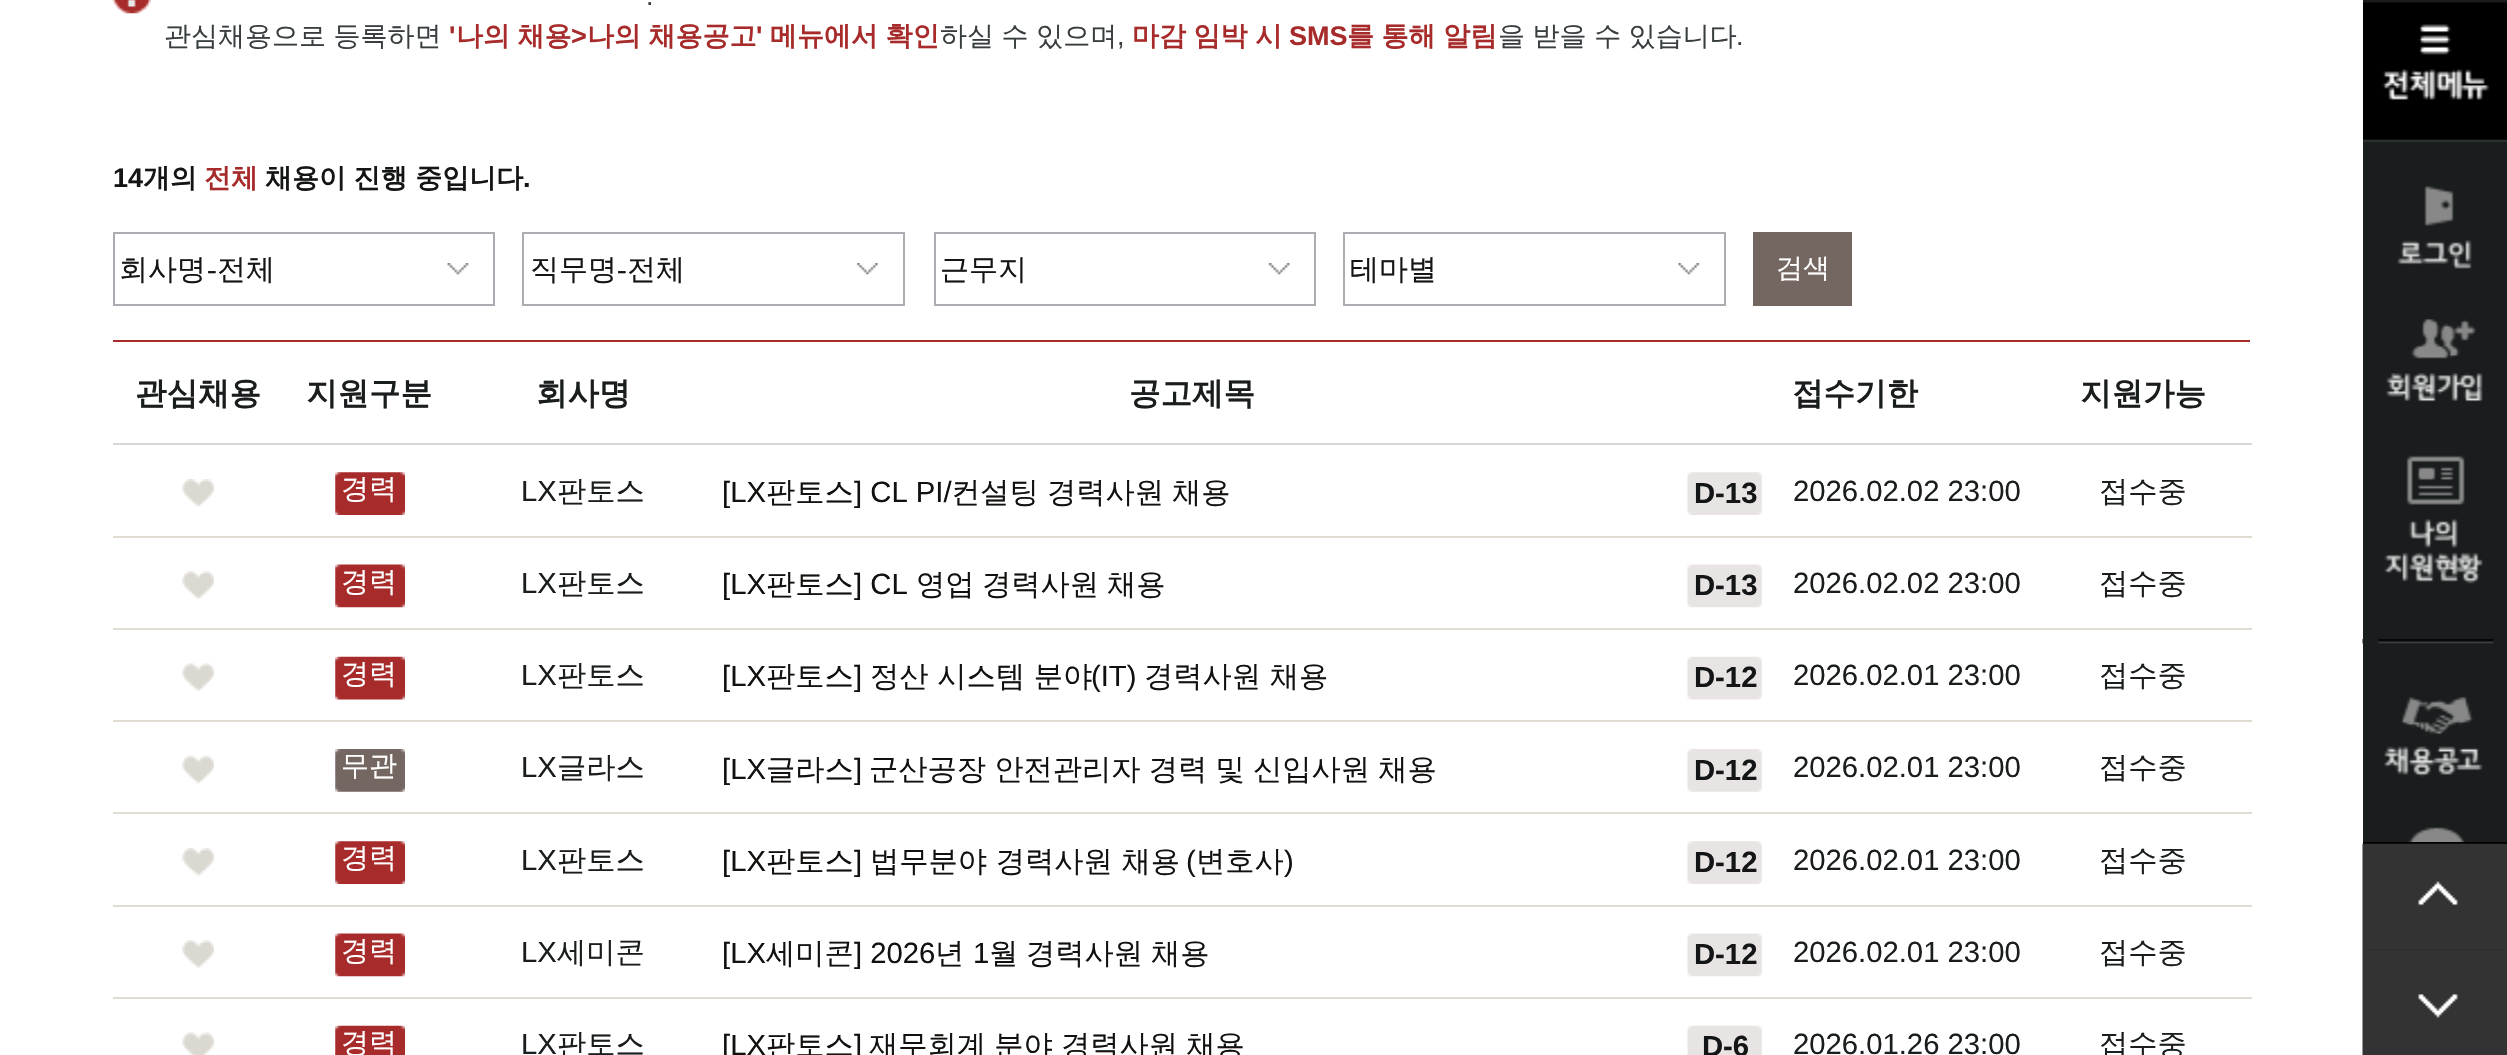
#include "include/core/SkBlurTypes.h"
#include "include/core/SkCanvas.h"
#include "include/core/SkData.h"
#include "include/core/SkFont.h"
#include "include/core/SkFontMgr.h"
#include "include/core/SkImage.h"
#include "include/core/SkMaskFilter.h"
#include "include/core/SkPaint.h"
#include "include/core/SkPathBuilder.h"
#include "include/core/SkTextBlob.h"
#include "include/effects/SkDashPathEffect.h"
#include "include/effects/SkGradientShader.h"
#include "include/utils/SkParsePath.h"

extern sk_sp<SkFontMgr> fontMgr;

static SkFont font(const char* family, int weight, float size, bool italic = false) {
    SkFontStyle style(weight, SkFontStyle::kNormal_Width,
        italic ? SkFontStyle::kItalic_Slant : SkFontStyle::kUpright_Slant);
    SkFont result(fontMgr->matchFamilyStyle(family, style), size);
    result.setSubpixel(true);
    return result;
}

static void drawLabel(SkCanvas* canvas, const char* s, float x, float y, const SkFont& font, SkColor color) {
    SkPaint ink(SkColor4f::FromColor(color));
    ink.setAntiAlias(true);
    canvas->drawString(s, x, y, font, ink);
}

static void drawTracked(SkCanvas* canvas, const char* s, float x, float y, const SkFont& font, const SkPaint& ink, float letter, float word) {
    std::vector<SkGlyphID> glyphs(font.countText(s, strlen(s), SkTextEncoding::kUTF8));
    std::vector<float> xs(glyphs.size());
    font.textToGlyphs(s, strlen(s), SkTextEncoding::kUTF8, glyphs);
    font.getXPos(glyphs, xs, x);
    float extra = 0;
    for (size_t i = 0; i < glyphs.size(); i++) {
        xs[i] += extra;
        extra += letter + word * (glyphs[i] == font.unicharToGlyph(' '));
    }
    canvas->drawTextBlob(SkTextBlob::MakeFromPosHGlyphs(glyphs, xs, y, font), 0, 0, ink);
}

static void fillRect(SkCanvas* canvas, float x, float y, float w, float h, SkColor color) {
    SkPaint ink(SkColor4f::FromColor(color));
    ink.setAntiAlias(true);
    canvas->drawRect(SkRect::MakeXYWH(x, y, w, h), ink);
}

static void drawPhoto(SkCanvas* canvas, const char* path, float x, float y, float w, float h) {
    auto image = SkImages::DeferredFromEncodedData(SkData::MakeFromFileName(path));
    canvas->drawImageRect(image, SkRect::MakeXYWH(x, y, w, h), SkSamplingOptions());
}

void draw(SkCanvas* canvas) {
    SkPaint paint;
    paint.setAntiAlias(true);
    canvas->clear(0xFFFFFFFF);
    drawPhoto(canvas, "assets/img1.png", 112, 0, 39, 14);
    SkFont font1 = font("Liberation Sans", 400, 27);
    drawLabel(canvas, ".", 646, 5, font1, 0xFF383D3F);
    SkFont font2 = font("WenQuanYi Zen Hei", 500, 27);
    paint.setColor(0xFF383D3F);
    drawTracked(canvas, "관심채용으로 등록하면", 164, 45, font2, paint, 0, -0.5f);
    SkFont font3 = font("Liberation Sans", 700, 27);
    drawLabel(canvas, "'", 449, 45, font3, 0xFFA72B2A);
    SkFont font4 = font("WenQuanYi Zen Hei", 700, 27);
    paint.setColor(0xFFA72B2A);
    drawTracked(canvas, "나의 채용", 456, 45, font4, paint, 0, -0.5f);
    drawLabel(canvas, ">", 571, 45, font3, 0xFFA72B2A);
    drawTracked(canvas, "나의 채용공고", 587, 45, font4, paint, 0, -0.5f);
    drawLabel(canvas, "'", 756, 45, font3, 0xFFA72B2A);
    drawTracked(canvas, "메뉴에서 확인", 770, 45, font4, paint, 0, -0.5f);
    paint.setColor(0xFF383D3F);
    drawTracked(canvas, "하실 수 있으며", 940, 45, font2, paint, 0, -0.5f);
    paint.setColor(0xFFA72B2A);
    drawTracked(canvas, "마감 임박 시", 1132, 45, font4, paint, 0, -0.5f);
    drawLabel(canvas, "SMS", 1289, 45, font3, 0xFFA72B2A);
    drawTracked(canvas, "를 통해 알림", 1347, 45, font4, paint, 0, -0.5f);
    paint.setColor(0xFF383D3F);
    drawTracked(canvas, "을 받을 수 있습니다", 1498, 45, font2, paint, 0, -0.5f);
    drawLabel(canvas, ",", 1117, 45, font1, 0xFF383D3F);
    drawLabel(canvas, ".", 1736, 45, font1, 0xFF383D3F);
    drawLabel(canvas, "14", 113, 187, font3, 0xFF141516);
    drawLabel(canvas, "개의", 143, 187, font4, 0xFF141516);
    drawLabel(canvas, "전체", 204, 187, font4, 0xFFA72B2A);
    paint.setColor(0xFF141516);
    drawTracked(canvas, "채용이 진행 중입니다", 265, 187, font4, paint, 0, -0.5f);
    drawLabel(canvas, ".", 523, 187, font3, 0xFF141516);
    drawPhoto(canvas, "assets/img2.png", 447, 263, 22, 12);
    paint.setStroke(true);
    paint.setStrokeWidth(2);
    paint.setColor(0xFFACADB2);
    canvas->drawRect(SkRect::MakeXYWH(114, 233, 380, 72), paint);
    SkFont font5 = font("WenQuanYi Zen Hei", 500, 29);
    drawLabel(canvas, "회사명", 119, 279, font5, 0xFF141516);
    SkFont font6 = font("Liberation Serif", 400, 29);
    drawLabel(canvas, "-", 207, 279, font6, 0xFF141516);
    drawLabel(canvas, "전체", 217, 279, font5, 0xFF141516);
    drawPhoto(canvas, "assets/img3.png", 856, 263, 23, 12);
    canvas->drawRect(SkRect::MakeXYWH(523, 233, 381, 72), paint);
    drawLabel(canvas, "직무명", 530, 279, font5, 0xFF141516);
    drawLabel(canvas, "-", 617, 279, font6, 0xFF141516);
    drawLabel(canvas, "전체", 627, 279, font5, 0xFF141516);
    drawPhoto(canvas, "assets/img4.png", 1268, 263, 22, 12);
    canvas->drawRect(SkRect::MakeXYWH(935, 233, 380, 72), paint);
    drawLabel(canvas, "근무지", 940, 279, font5, 0xFF141516);
    drawPhoto(canvas, "assets/img5.png", 1678, 263, 22, 12);
    canvas->drawRect(SkRect::MakeXYWH(1344, 233, 381, 72), paint);
    drawLabel(canvas, "테마별", 1350, 279, font5, 0xFF141516);
    fillRect(canvas, 1753, 232, 99, 74, 0xFF746661);
    drawLabel(canvas, "검색", 1776, 277, font2, 0xFFFFFFFF);
    fillRect(canvas, 113, 340, 2137, 2, 0xFFA72B2A);
    SkFont font7 = font("WenQuanYi Zen Hei", 700, 31.5f);
    drawLabel(canvas, "관심채용", 135, 404, font7, 0xFF1A1D1E);
    drawLabel(canvas, "지원구분", 306, 404, font7, 0xFF1A1D1E);
    drawLabel(canvas, "회사명", 536, 404, font7, 0xFF1A1D1E);
    drawLabel(canvas, "공고제목", 1129, 404, font7, 0xFF1A1D1E);
    drawLabel(canvas, "접수기한", 1792, 404, font7, 0xFF1A1D1E);
    fillRect(canvas, 113, 443, 2139, 2, 0xFFD7D7D7);
    drawLabel(canvas, "지원가능", 2080, 404, font7, 0xFF1A1D1E);
    drawPhoto(canvas, "assets/img6.png", 182, 479, 32, 28);
    drawPhoto(canvas, "assets/img7.png", 335, 472, 70, 43);
    SkFont font8 = font("WenQuanYi Zen Hei", 500, 28);
    drawLabel(canvas, "경력", 341, 498, font8, 0xFFFFFFFF);
    SkFont font9 = font("Liberation Sans", 400, 29.25f);
    drawLabel(canvas, "LX", 521, 501, font9, 0xFF1A1D1E);
    SkFont font10 = font("WenQuanYi Zen Hei", 500, 29.25f);
    drawLabel(canvas, "판토스", 557, 501, font10, 0xFF1A1D1E);
    drawLabel(canvas, "[LX", 722, 502, font9, 0xFF13110F);
    drawLabel(canvas, "판토스", 766, 502, font10, 0xFF13110F);
    drawLabel(canvas, "] CL PI/", 854, 502, font9, 0xFF13110F);
    drawLabel(canvas, "컨설팅", 951, 502, font10, 0xFF13110F);
    drawLabel(canvas, "경력사원", 1047, 502, font10, 0xFF13110F);
    drawLabel(canvas, "채용", 1172, 502, font10, 0xFF13110F);
    drawPhoto(canvas, "assets/img8.png", 1687, 472, 75, 43);
    SkFont font11 = font("Liberation Sans", 700, 29.25f);
    drawLabel(canvas, "D-13", 1694, 503, font11, 0xFF141516);
    drawLabel(canvas, "2026.02.02 23:00", 1793, 501, font9, 0xFF1A1D1E);
    fillRect(canvas, 113, 536, 2139, 2, 0xFFE0DCD2);
    drawLabel(canvas, "접수중", 2099, 501, font10, 0xFF1A1D1E);
    drawPhoto(canvas, "assets/img9.png", 182, 571, 32, 28);
    drawPhoto(canvas, "assets/img10.png", 335, 564, 70, 44);
    drawLabel(canvas, "경력", 341, 591, font8, 0xFFFFFFFF);
    drawLabel(canvas, "LX", 521, 593, font9, 0xFF1A1D1E);
    drawLabel(canvas, "판토스", 557, 593, font10, 0xFF1A1D1E);
    drawLabel(canvas, "[LX", 722, 594, font9, 0xFF13110F);
    drawLabel(canvas, "판토스", 766, 594, font10, 0xFF13110F);
    drawLabel(canvas, "] CL", 854, 594, font9, 0xFF13110F);
    drawLabel(canvas, "영업", 916, 594, font10, 0xFF13110F);
    drawLabel(canvas, "경력사원", 982, 594, font10, 0xFF13110F);
    drawLabel(canvas, "채용", 1107, 594, font10, 0xFF13110F);
    drawPhoto(canvas, "assets/img11.png", 1687, 564, 75, 44);
    drawLabel(canvas, "D-13", 1694, 595, font11, 0xFF141516);
    drawLabel(canvas, "2026.02.02 23:00", 1793, 593, font9, 0xFF1A1D1E);
    fillRect(canvas, 113, 628, 2139, 2, 0xFFE0DCD2);
    drawLabel(canvas, "접수중", 2099, 593, font10, 0xFF1A1D1E);
    drawPhoto(canvas, "assets/img12.png", 182, 663, 32, 28);
    drawPhoto(canvas, "assets/img13.png", 335, 656, 70, 44);
    drawLabel(canvas, "경력", 341, 683, font8, 0xFFFFFFFF);
    drawLabel(canvas, "LX", 521, 685, font9, 0xFF1A1D1E);
    drawLabel(canvas, "판토스", 557, 685, font10, 0xFF1A1D1E);
    drawLabel(canvas, "[LX", 722, 686, font9, 0xFF13110F);
    drawLabel(canvas, "판토스", 766, 686, font10, 0xFF13110F);
    drawLabel(canvas, "]", 854, 686, font9, 0xFF13110F);
    drawLabel(canvas, "정산 시스템 분야", 870, 686, font10, 0xFF13110F);
    drawLabel(canvas, "(IT)", 1091, 686, font9, 0xFF13110F);
    drawLabel(canvas, "경력사원 채용", 1144, 686, font10, 0xFF13110F);
    drawPhoto(canvas, "assets/img14.png", 1687, 656, 75, 44);
    drawLabel(canvas, "D-12", 1694, 687, font11, 0xFF141516);
    drawLabel(canvas, "2026.02.01 23:00", 1793, 685, font9, 0xFF1A1D1E);
    fillRect(canvas, 113, 720, 2139, 2, 0xFFE0DCD2);
    drawLabel(canvas, "접수중", 2099, 685, font10, 0xFF1A1D1E);
    drawPhoto(canvas, "assets/img15.png", 182, 755, 32, 29);
    drawPhoto(canvas, "assets/img16.png", 335, 749, 70, 43);
    drawLabel(canvas, "무관", 341, 775, font8, 0xFFFFFFFF);
    drawLabel(canvas, "LX", 521, 777, font9, 0xFF1A1D1E);
    drawLabel(canvas, "글라스", 557, 777, font10, 0xFF1A1D1E);
    drawLabel(canvas, "[LX", 722, 779, font9, 0xFF13110F);
    drawLabel(canvas, "글라스", 766, 779, font10, 0xFF13110F);
    drawLabel(canvas, "]", 854, 779, font9, 0xFF13110F);
    paint.setStroke(false);
    paint.setColor(0xFF13110F);
    drawTracked(canvas, "군산공장 안전관리자 경력 및 신입사원 채용", 869, 779, font10, paint, 0, -0.5f);
    drawPhoto(canvas, "assets/img17.png", 1687, 749, 75, 43);
    drawLabel(canvas, "D-12", 1694, 780, font11, 0xFF141516);
    drawLabel(canvas, "2026.02.01 23:00", 1793, 777, font9, 0xFF1A1D1E);
    fillRect(canvas, 113, 812, 2139, 2, 0xFFE0DCD2);
    drawLabel(canvas, "접수중", 2099, 777, font10, 0xFF1A1D1E);
    drawPhoto(canvas, "assets/img6.png", 182, 848, 32, 28);
    drawPhoto(canvas, "assets/img7.png", 335, 841, 70, 43);
    drawLabel(canvas, "경력", 341, 867, font8, 0xFFFFFFFF);
    drawLabel(canvas, "LX", 521, 870, font9, 0xFF1A1D1E);
    drawLabel(canvas, "판토스", 557, 870, font10, 0xFF1A1D1E);
    drawLabel(canvas, "[LX", 722, 871, font9, 0xFF13110F);
    drawLabel(canvas, "판토스", 766, 871, font10, 0xFF13110F);
    drawLabel(canvas, "]", 854, 871, font9, 0xFF13110F);
    drawLabel(canvas, "법무분야 경력사원 채용", 870, 871, font10, 0xFF13110F);
    drawLabel(canvas, "(", 1186, 871, font9, 0xFF13110F);
    drawLabel(canvas, "변호사", 1196, 871, font10, 0xFF13110F);
    drawLabel(canvas, ")", 1284, 871, font9, 0xFF13110F);
    drawPhoto(canvas, "assets/img8.png", 1687, 841, 75, 43);
    drawLabel(canvas, "D-12", 1694, 872, font11, 0xFF141516);
    drawLabel(canvas, "2026.02.01 23:00", 1793, 870, font9, 0xFF1A1D1E);
    fillRect(canvas, 113, 905, 2139, 2, 0xFFE0DCD2);
    drawLabel(canvas, "접수중", 2099, 870, font10, 0xFF1A1D1E);
    drawPhoto(canvas, "assets/img9.png", 182, 940, 32, 28);
    drawPhoto(canvas, "assets/img10.png", 335, 933, 70, 44);
    drawLabel(canvas, "경력", 341, 960, font8, 0xFFFFFFFF);
    drawLabel(canvas, "LX", 521, 962, font9, 0xFF1A1D1E);
    drawLabel(canvas, "세미콘", 557, 962, font10, 0xFF1A1D1E);
    drawLabel(canvas, "[LX", 722, 963, font9, 0xFF13110F);
    drawLabel(canvas, "세미콘", 766, 963, font10, 0xFF13110F);
    drawLabel(canvas, "] 2026", 854, 963, font9, 0xFF13110F);
    drawLabel(canvas, "년", 935, 963, font10, 0xFF13110F);
    drawLabel(canvas, "1", 973, 963, font9, 0xFF13110F);
    drawLabel(canvas, "월", 989, 963, font10, 0xFF13110F);
    drawLabel(canvas, "경력사원", 1026, 963, font10, 0xFF13110F);
    drawLabel(canvas, "채용", 1151, 963, font10, 0xFF13110F);
    drawPhoto(canvas, "assets/img11.png", 1687, 933, 75, 44);
    drawLabel(canvas, "D-12", 1694, 964, font11, 0xFF141516);
    drawLabel(canvas, "2026.02.01 23:00", 1793, 962, font9, 0xFF1A1D1E);
    fillRect(canvas, 113, 997, 2139, 2, 0xFFE0DCD2);
    drawLabel(canvas, "접수중", 2099, 962, font10, 0xFF1A1D1E);
    drawPhoto(canvas, "assets/img18.png", 182, 1032, 32, 23);
    drawPhoto(canvas, "assets/img19.png", 335, 1025, 70, 30);
    drawLabel(canvas, "경력", 341, 1052, font8, 0xFFFFFFFF);
    drawLabel(canvas, "LX", 521, 1054, font9, 0xFF1A1D1E);
    drawLabel(canvas, "판토스", 557, 1054, font10, 0xFF1A1D1E);
    drawLabel(canvas, "[LX", 722, 1055, font9, 0xFF13110F);
    drawLabel(canvas, "판토스", 766, 1055, font10, 0xFF13110F);
    drawLabel(canvas, "]", 854, 1055, font9, 0xFF13110F);
    drawTracked(canvas, "재무회계 분야 경력사원 채용", 869, 1055, font10, paint, 0, -0.5f);
    drawPhoto(canvas, "assets/img20.png", 1687, 1025, 75, 30);
    drawLabel(canvas, "D-6", 1702, 1056, font11, 0xFF141516);
    drawLabel(canvas, "2026.01.26 23:00", 1793, 1054, font9, 0xFF1A1D1E);
    drawLabel(canvas, "접수중", 2099, 1054, font10, 0xFF1A1D1E);
    fillRect(canvas, 2363, 0, 144, 950, 0xFF1A1D1E);
    drawPhoto(canvas, "assets/img21.png", 2363, 2, 144, 138);
    fillRect(canvas, 2363, 140, 144, 2, 0xFF2C2F30);
    drawPhoto(canvas, "assets/img22.png", 2397, 185, 75, 84);
    drawPhoto(canvas, "assets/img23.png", 2386, 319, 97, 83);
    drawPhoto(canvas, "assets/img25.png", 2362, 639, 132, 6);
    drawPhoto(canvas, "assets/img24.png", 2379, 455, 113, 185);
    drawPhoto(canvas, "assets/img26.png", 2378, 643, 115, 134);
    drawPhoto(canvas, "assets/img27.png", 2386, 827, 97, 15);
    fillRect(canvas, 2363, 842, 144, 2, 0xFF000000);
    drawPhoto(canvas, "assets/img28.png", 2362, 843, 145, 107);
    drawPhoto(canvas, "assets/img29.png", 2362, 949, 145, 106);
}
